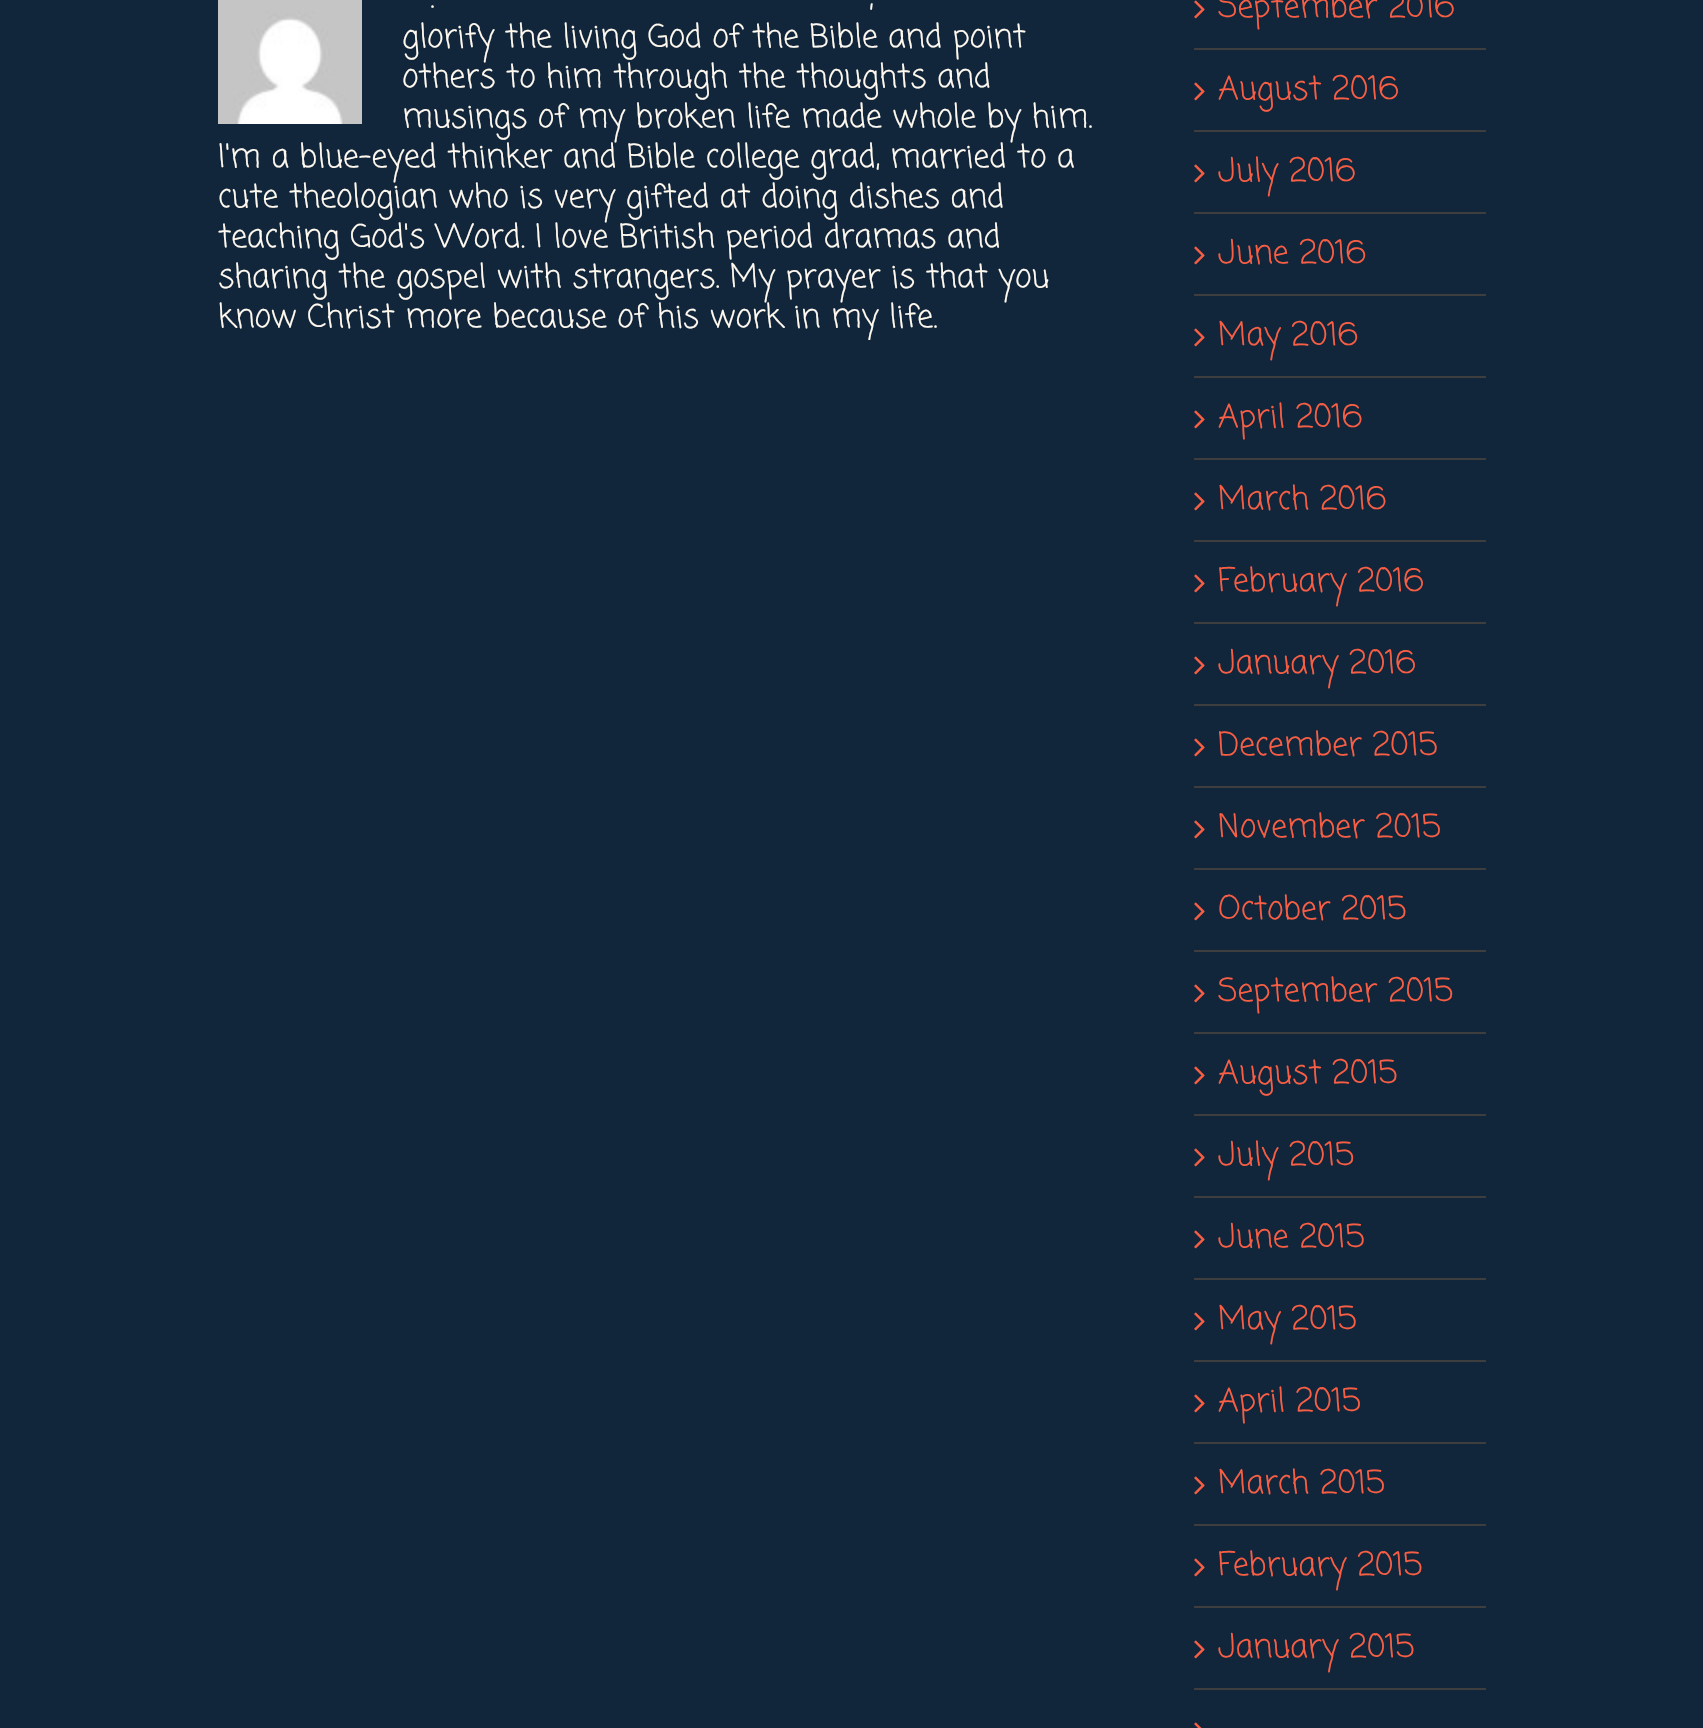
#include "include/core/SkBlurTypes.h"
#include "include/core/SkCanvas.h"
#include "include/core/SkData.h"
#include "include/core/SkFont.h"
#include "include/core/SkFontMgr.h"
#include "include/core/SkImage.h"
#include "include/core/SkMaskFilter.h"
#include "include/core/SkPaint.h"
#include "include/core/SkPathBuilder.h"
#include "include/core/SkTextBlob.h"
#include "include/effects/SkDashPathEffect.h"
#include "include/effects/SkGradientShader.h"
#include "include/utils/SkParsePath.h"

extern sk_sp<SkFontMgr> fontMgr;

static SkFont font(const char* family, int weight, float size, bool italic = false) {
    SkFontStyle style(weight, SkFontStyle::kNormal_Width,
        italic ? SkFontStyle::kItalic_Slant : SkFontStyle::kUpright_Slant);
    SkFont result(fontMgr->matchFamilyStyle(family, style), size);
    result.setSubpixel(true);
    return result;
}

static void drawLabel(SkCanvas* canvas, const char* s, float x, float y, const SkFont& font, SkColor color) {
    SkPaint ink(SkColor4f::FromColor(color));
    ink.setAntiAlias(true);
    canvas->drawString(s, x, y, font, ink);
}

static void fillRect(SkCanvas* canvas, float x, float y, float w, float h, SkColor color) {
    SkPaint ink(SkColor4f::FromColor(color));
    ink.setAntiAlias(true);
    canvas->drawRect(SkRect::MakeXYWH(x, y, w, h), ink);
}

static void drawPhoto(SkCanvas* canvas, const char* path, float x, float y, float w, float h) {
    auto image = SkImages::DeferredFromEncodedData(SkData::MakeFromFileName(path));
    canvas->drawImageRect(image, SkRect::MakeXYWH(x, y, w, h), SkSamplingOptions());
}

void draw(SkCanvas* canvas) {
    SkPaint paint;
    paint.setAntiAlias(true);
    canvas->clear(0xFF12263B);
    drawPhoto(canvas, "assets/img1.png", 218, 0, 144, 124);
    SkFont font1 = font("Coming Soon", 400, 32);
    drawLabel(canvas, ".", 430, 7, font1, 0xFFFFF9EF);
    drawLabel(canvas, ",", 869, 7, font1, 0xFFFFF9EF);
    drawLabel(canvas, "glorify the living God of the Bible and point", 402, 47, font1, 0xFFFFF9EF);
    drawLabel(canvas, "others to him through the thoughts and", 402, 87, font1, 0xFFFFF9EF);
    drawLabel(canvas, "musings of my broken life made whole by him.", 402, 127, font1, 0xFFFFF9EF);
    drawLabel(canvas, "I'm a blue-eyed thinker and Bible college grad, married to a", 218, 167, font1, 0xFFFFF9EF);
    drawLabel(canvas, "cute theologian who is very gifted at doing dishes and", 218, 207, font1, 0xFFFFF9EF);
    drawLabel(canvas, "teaching God's Word. I love British period dramas and", 218, 247, font1, 0xFFFFF9EF);
    drawLabel(canvas, "sharing the gospel with strangers. My prayer is that you", 218, 287, font1, 0xFFFFF9EF);
    canvas->save();
    canvas->clipRect(SkRect::MakeXYWH(218, 0, 900, 340));
    drawLabel(canvas, "know Christ more because of his work in my life.", 218, 327, font1, 0xFFFFF9EF);
    canvas->restore();
    fillRect(canvas, 1194, 48, 292, 2, 0xFF3E3E3E);
    drawPhoto(canvas, "assets/img2.png", 1194, 0, 11, 19);
    drawLabel(canvas, "September 2016", 1218, 17, font1, 0xFFF85E44);
    fillRect(canvas, 1194, 130, 292, 2, 0xFF3E3E3E);
    drawPhoto(canvas, "assets/img2.png", 1194, 82, 11, 19);
    drawLabel(canvas, "August 2016", 1218, 99, font1, 0xFFF85E44);
    fillRect(canvas, 1194, 212, 292, 2, 0xFF3E3E3E);
    drawPhoto(canvas, "assets/img2.png", 1194, 164, 11, 19);
    drawLabel(canvas, "July 2016", 1218, 181, font1, 0xFFF85E44);
    fillRect(canvas, 1194, 294, 292, 2, 0xFF3E3E3E);
    drawPhoto(canvas, "assets/img2.png", 1194, 246, 11, 19);
    drawLabel(canvas, "June 2016", 1218, 263, font1, 0xFFF85E44);
    fillRect(canvas, 1194, 376, 292, 2, 0xFF3E3E3E);
    drawPhoto(canvas, "assets/img2.png", 1194, 328, 11, 19);
    drawLabel(canvas, "May 2016", 1218, 345, font1, 0xFFF85E44);
    fillRect(canvas, 1194, 458, 292, 2, 0xFF3E3E3E);
    drawPhoto(canvas, "assets/img2.png", 1194, 410, 11, 19);
    drawLabel(canvas, "April 2016", 1218, 427, font1, 0xFFF85E44);
    fillRect(canvas, 1194, 540, 292, 2, 0xFF3E3E3E);
    drawPhoto(canvas, "assets/img2.png", 1194, 492, 11, 19);
    drawLabel(canvas, "March 2016", 1218, 509, font1, 0xFFF85E44);
    fillRect(canvas, 1194, 622, 292, 2, 0xFF3E3E3E);
    drawPhoto(canvas, "assets/img2.png", 1194, 574, 11, 19);
    drawLabel(canvas, "February 2016", 1218, 591, font1, 0xFFF85E44);
    fillRect(canvas, 1194, 704, 292, 2, 0xFF3E3E3E);
    drawPhoto(canvas, "assets/img2.png", 1194, 656, 11, 19);
    drawLabel(canvas, "January 2016", 1218, 673, font1, 0xFFF85E44);
    fillRect(canvas, 1194, 786, 292, 2, 0xFF3E3E3E);
    drawPhoto(canvas, "assets/img2.png", 1194, 738, 11, 19);
    drawLabel(canvas, "December 2015", 1218, 755, font1, 0xFFF85E44);
    fillRect(canvas, 1194, 868, 292, 2, 0xFF3E3E3E);
    drawPhoto(canvas, "assets/img2.png", 1194, 820, 11, 19);
    drawLabel(canvas, "November 2015", 1218, 837, font1, 0xFFF85E44);
    fillRect(canvas, 1194, 950, 292, 2, 0xFF3E3E3E);
    drawPhoto(canvas, "assets/img2.png", 1194, 902, 11, 19);
    drawLabel(canvas, "October 2015", 1218, 919, font1, 0xFFF85E44);
    fillRect(canvas, 1194, 1032, 292, 2, 0xFF3E3E3E);
    drawPhoto(canvas, "assets/img2.png", 1194, 984, 11, 19);
    drawLabel(canvas, "September 2015", 1218, 1001, font1, 0xFFF85E44);
    fillRect(canvas, 1194, 1114, 292, 2, 0xFF3E3E3E);
    drawPhoto(canvas, "assets/img2.png", 1194, 1066, 11, 19);
    drawLabel(canvas, "August 2015", 1218, 1083, font1, 0xFFF85E44);
    fillRect(canvas, 1194, 1196, 292, 2, 0xFF3E3E3E);
    drawPhoto(canvas, "assets/img2.png", 1194, 1148, 11, 19);
    drawLabel(canvas, "July 2015", 1218, 1165, font1, 0xFFF85E44);
    fillRect(canvas, 1194, 1278, 292, 2, 0xFF3E3E3E);
    drawPhoto(canvas, "assets/img2.png", 1194, 1230, 11, 19);
    drawLabel(canvas, "June 2015", 1218, 1247, font1, 0xFFF85E44);
    fillRect(canvas, 1194, 1360, 292, 2, 0xFF3E3E3E);
    drawPhoto(canvas, "assets/img2.png", 1194, 1312, 11, 19);
    drawLabel(canvas, "May 2015", 1218, 1329, font1, 0xFFF85E44);
    fillRect(canvas, 1194, 1442, 292, 2, 0xFF3E3E3E);
    drawPhoto(canvas, "assets/img2.png", 1194, 1394, 11, 19);
    drawLabel(canvas, "April 2015", 1218, 1411, font1, 0xFFF85E44);
    fillRect(canvas, 1194, 1524, 292, 2, 0xFF3E3E3E);
    drawPhoto(canvas, "assets/img2.png", 1194, 1476, 11, 19);
    drawLabel(canvas, "March 2015", 1218, 1493, font1, 0xFFF85E44);
    fillRect(canvas, 1194, 1606, 292, 2, 0xFF3E3E3E);
    drawPhoto(canvas, "assets/img2.png", 1194, 1558, 11, 19);
    drawLabel(canvas, "February 2015", 1218, 1575, font1, 0xFFF85E44);
    fillRect(canvas, 1194, 1688, 292, 2, 0xFF3E3E3E);
    drawPhoto(canvas, "assets/img2.png", 1194, 1640, 11, 19);
    drawLabel(canvas, "January 2015", 1218, 1657, font1, 0xFFF85E44);
    drawPhoto(canvas, "assets/img3.png", 1194, 1722, 8, 6);
}
